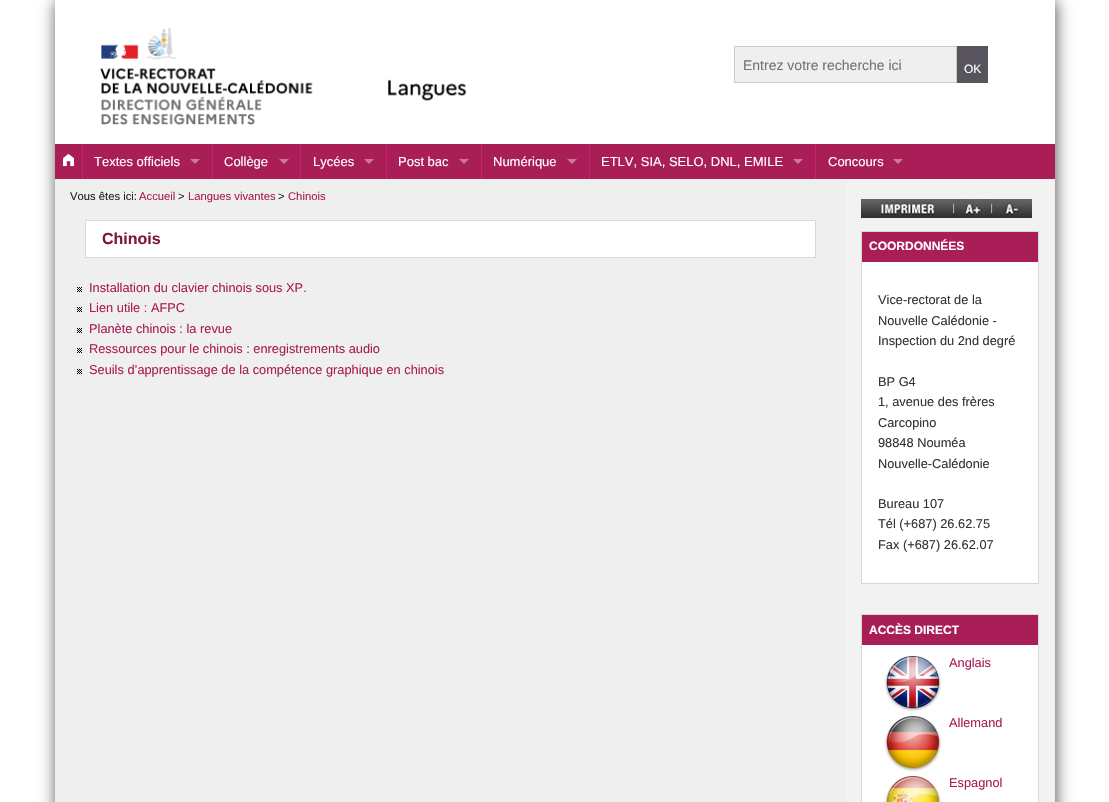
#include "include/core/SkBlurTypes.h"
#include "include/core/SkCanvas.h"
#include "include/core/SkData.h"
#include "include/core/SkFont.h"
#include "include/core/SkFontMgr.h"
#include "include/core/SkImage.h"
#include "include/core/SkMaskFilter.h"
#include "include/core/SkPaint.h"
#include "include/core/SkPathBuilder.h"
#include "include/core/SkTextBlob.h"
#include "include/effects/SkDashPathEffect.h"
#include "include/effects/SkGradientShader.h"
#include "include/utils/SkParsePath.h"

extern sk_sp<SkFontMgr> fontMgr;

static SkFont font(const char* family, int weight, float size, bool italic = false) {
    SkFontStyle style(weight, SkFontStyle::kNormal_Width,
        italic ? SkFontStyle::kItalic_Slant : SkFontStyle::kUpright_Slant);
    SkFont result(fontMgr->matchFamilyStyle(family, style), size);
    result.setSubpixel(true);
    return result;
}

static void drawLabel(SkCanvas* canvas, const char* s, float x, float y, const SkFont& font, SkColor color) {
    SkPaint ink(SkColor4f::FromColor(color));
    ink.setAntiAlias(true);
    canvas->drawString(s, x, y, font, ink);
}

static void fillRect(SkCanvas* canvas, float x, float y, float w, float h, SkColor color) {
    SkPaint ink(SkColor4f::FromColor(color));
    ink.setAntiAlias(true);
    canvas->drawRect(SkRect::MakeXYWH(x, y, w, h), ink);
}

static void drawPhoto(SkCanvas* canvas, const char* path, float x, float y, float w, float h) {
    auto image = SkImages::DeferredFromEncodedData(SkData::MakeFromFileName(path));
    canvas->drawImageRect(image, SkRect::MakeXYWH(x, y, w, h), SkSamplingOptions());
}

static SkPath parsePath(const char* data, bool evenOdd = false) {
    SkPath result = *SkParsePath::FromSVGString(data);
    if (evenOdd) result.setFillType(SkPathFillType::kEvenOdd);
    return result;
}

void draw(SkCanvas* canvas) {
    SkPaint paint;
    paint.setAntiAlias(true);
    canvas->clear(0xFFFFFFFF);
    paint.setColor(0xFF555555);
    paint.setMaskFilter(SkMaskFilter::MakeBlur(kNormal_SkBlurStyle, 7.5f));
    canvas->drawRect(SkRect::MakeXYWH(56, 1, 1000, 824), paint);
    paint.setMaskFilter(nullptr);
    fillRect(canvas, 55, 179, 1000, 623, 0xFFEFEFEF);
    fillRect(canvas, 55, 0, 1000, 144, 0xFFFFFFFF);
    drawPhoto(canvas, "assets/img1.png", 100, 26, 367, 99);
    paint.setColor(0xFFEFEFEF);
    canvas->drawRect(SkRect::MakeXYWH(734.5f, 46.5f, 222, 36), paint);
    paint.setStroke(true);
    paint.setStrokeWidth(1);
    paint.setColor(0xFFCCCCCC);
    canvas->drawRect(SkRect::MakeXYWH(734.5f, 46.5f, 222, 36), paint);
    SkFont font1 = font("Liberation Sans", 400, 14);
    drawLabel(canvas, "Entrez votre recherche ici", 743, 70, font1, 0xFF757575);
    fillRect(canvas, 957, 46, 31, 37, 0xFF57545D);
    SkFont font2 = font("Liberation Sans", 400, 12);
    drawLabel(canvas, "OK", 964, 73, font2, 0xFFFFFFFF);
    fillRect(canvas, 55, 144, 1000, 35, 0xFFA91E57);
    drawPhoto(canvas, "assets/img2.png", 63, 154, 12, 13);
    fillRect(canvas, 82, 144, 1, 35, 0xFFCB2469);
    SkFont font3 = font("Liberation Sans", 400, 13);
    drawLabel(canvas, "Textes officiels", 94, 166, font3, 0xFFFFFFFF);
    paint.setStroke(false);
    paint.setColor(0xFFCB789A);
    canvas->drawPath(parsePath("M190 159H200L195 164Z"), paint);
    fillRect(canvas, 212, 144, 1, 35, 0xFFCB2469);
    drawLabel(canvas, "Collège", 224, 166, font3, 0xFFFFFFFF);
    canvas->drawPath(parsePath("M279 159H289L284 164Z"), paint);
    fillRect(canvas, 300, 144, 1, 35, 0xFFCB2469);
    drawLabel(canvas, "Lycées", 313, 166, font3, 0xFFFFFFFF);
    canvas->drawPath(parsePath("M364 159H374L369 164Z"), paint);
    fillRect(canvas, 386, 144, 1, 35, 0xFFCB2469);
    drawLabel(canvas, "Post bac", 398, 166, font3, 0xFFFFFFFF);
    canvas->drawPath(parsePath("M459 159H469L464 164Z"), paint);
    fillRect(canvas, 481, 144, 1, 35, 0xFFCB2469);
    drawLabel(canvas, "Numérique", 493, 166, font3, 0xFFFFFFFF);
    canvas->drawPath(parsePath("M567 159H577L572 164Z"), paint);
    fillRect(canvas, 589, 144, 1, 35, 0xFFCB2469);
    drawLabel(canvas, "ETLV, SIA, SELO, DNL, EMILE", 601, 166, font3, 0xFFFFFFFF);
    canvas->drawPath(parsePath("M793 159H803L798 164Z"), paint);
    fillRect(canvas, 815, 144, 1, 35, 0xFFCB2469);
    drawLabel(canvas, "Concours", 828, 166, font3, 0xFFFFFFFF);
    canvas->drawPath(parsePath("M893 159H903L898 164Z"), paint);
    SkFont font4 = font("Liberation Sans", 400, 11.25f);
    drawLabel(canvas, "Vous êtes ici:", 70, 200, font4, 0xFF222222);
    drawLabel(canvas, "Accueil", 139, 200, font4, 0xFFA91E57);
    drawLabel(canvas, ">", 178, 200, font4, 0xFF222222);
    drawLabel(canvas, "Langues vivantes", 188, 200, font4, 0xFFA91E57);
    drawLabel(canvas, ">", 278, 200, font4, 0xFF222222);
    drawLabel(canvas, "Chinois", 288, 200, font4, 0xFFA91E57);
    paint.setColor(0xFFFFFFFF);
    canvas->drawRect(SkRect::MakeXYWH(85.5f, 220.5f, 730, 37), paint);
    paint.setStroke(true);
    paint.setColor(0xFFD8D8D8);
    canvas->drawRect(SkRect::MakeXYWH(85.5f, 220.5f, 730, 37), paint);
    SkFont font5 = font("Liberation Sans", 700, 16);
    drawLabel(canvas, "Chinois", 102, 244, font5, 0xFF7E1641);
    drawPhoto(canvas, "assets/img3.png", 77, 287, 5, 5);
    SkFont font6 = font("Liberation Sans", 400, 12.8f);
    drawLabel(canvas, "Installation du clavier chinois sous XP.", 89, 292, font6, 0xFFA91E57);
    drawPhoto(canvas, "assets/img3.png", 77, 307, 5, 5);
    drawLabel(canvas, "Lien utile : AFPC", 89, 312, font6, 0xFFA91E57);
    drawPhoto(canvas, "assets/img3.png", 77, 328, 5, 5);
    drawLabel(canvas, "Planète chinois : la revue", 89, 333, font6, 0xFFA91E57);
    drawPhoto(canvas, "assets/img3.png", 77, 348, 5, 5);
    drawLabel(canvas, "Ressources pour le chinois : enregistrements audio", 89, 353, font6, 0xFFA91E57);
    drawPhoto(canvas, "assets/img3.png", 77, 369, 5, 5);
    drawLabel(canvas, "Seuils d’apprentissage de la compétence graphique en chinois", 89, 374, font6, 0xFFA91E57);
    fillRect(canvas, 846, 179, 208, 623, 0xFFF2F2F2);
    drawPhoto(canvas, "assets/img4.png", 861, 199, 92, 19);
    drawPhoto(canvas, "assets/img5.png", 953, 199, 38, 19);
    drawPhoto(canvas, "assets/img6.png", 991, 199, 41, 19);
    fillRect(canvas, 862, 262, 176, 321, 0xFFFFFFFF);
    canvas->drawRect(SkRect::MakeXYWH(861.5f, 231.5f, 177, 352), paint);
    fillRect(canvas, 862, 232, 176, 30, 0xFFA91E57);
    SkFont font7 = font("Liberation Sans", 700, 12);
    drawLabel(canvas, "COORDONNÉES", 869, 250, font7, 0xFFFFFFFF);
    drawLabel(canvas, "Vice-rectorat de la", 878, 304, font6, 0xFF333333);
    drawLabel(canvas, "Nouvelle Calédonie -", 878, 325, font6, 0xFF333333);
    drawLabel(canvas, "Inspection du 2nd degré", 878, 345, font6, 0xFF333333);
    drawLabel(canvas, "BP G4", 878, 386, font6, 0xFF333333);
    drawLabel(canvas, "1, avenue des frères", 878, 406, font6, 0xFF333333);
    drawLabel(canvas, "Carcopino", 878, 427, font6, 0xFF333333);
    drawLabel(canvas, "98848 Nouméa", 878, 447, font6, 0xFF333333);
    drawLabel(canvas, "Nouvelle-Calédonie", 878, 468, font6, 0xFF333333);
    drawLabel(canvas, "Bureau 107", 878, 508, font6, 0xFF333333);
    drawLabel(canvas, "Tél (+687) 26.62.75", 878, 528, font6, 0xFF333333);
    drawLabel(canvas, "Fax (+687) 26.62.07", 878, 549, font6, 0xFF333333);
    fillRect(canvas, 862, 645, 176, 157, 0xFFFFFFFF);
    canvas->drawRect(SkRect::MakeXYWH(861.5f, 614.5f, 177, 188), paint);
    fillRect(canvas, 862, 615, 176, 30, 0xFFA91E57);
    drawLabel(canvas, "ACCÈS DIRECT", 869, 634, font7, 0xFFFFFFFF);
    drawPhoto(canvas, "assets/img7.png", 884, 656, 58, 56);
    drawLabel(canvas, "Anglais", 949, 667, font6, 0xFFA91E57);
    drawPhoto(canvas, "assets/img8.png", 884, 716, 58, 56);
    drawLabel(canvas, "Allemand", 949, 727, font6, 0xFFA91E57);
    drawPhoto(canvas, "assets/img9.png", 884, 776, 58, 26);
    drawLabel(canvas, "Espagnol", 949, 787, font6, 0xFFA91E57);
}
